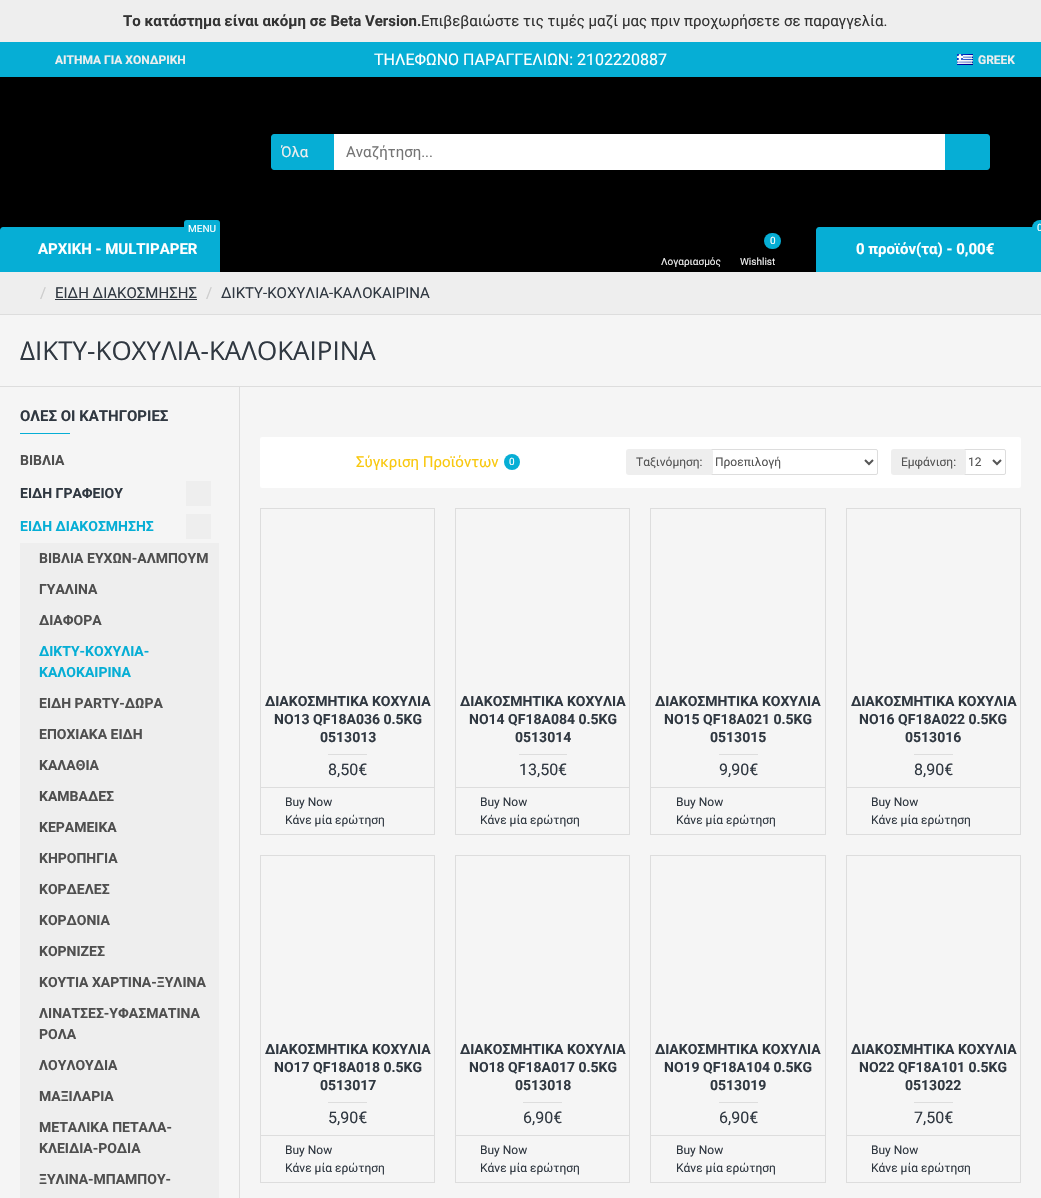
#include "include/core/SkBlurTypes.h"
#include "include/core/SkCanvas.h"
#include "include/core/SkData.h"
#include "include/core/SkFont.h"
#include "include/core/SkFontMgr.h"
#include "include/core/SkImage.h"
#include "include/core/SkMaskFilter.h"
#include "include/core/SkPaint.h"
#include "include/core/SkPathBuilder.h"
#include "include/core/SkTextBlob.h"
#include "include/effects/SkDashPathEffect.h"
#include "include/effects/SkGradientShader.h"
#include "include/utils/SkParsePath.h"

extern sk_sp<SkFontMgr> fontMgr;

static SkFont font(const char* family, int weight, float size, bool italic = false) {
    SkFontStyle style(weight, SkFontStyle::kNormal_Width,
        italic ? SkFontStyle::kItalic_Slant : SkFontStyle::kUpright_Slant);
    SkFont result(fontMgr->matchFamilyStyle(family, style), size);
    result.setSubpixel(true);
    return result;
}

static void drawLabel(SkCanvas* canvas, const char* s, float x, float y, const SkFont& font, SkColor color) {
    SkPaint ink(SkColor4f::FromColor(color));
    ink.setAntiAlias(true);
    canvas->drawString(s, x, y, font, ink);
}

static void fillRect(SkCanvas* canvas, float x, float y, float w, float h, SkColor color) {
    SkPaint ink(SkColor4f::FromColor(color));
    ink.setAntiAlias(true);
    canvas->drawRect(SkRect::MakeXYWH(x, y, w, h), ink);
}

static void fillRRect(SkCanvas* canvas, float x, float y, float w, float h, float radius, SkColor color) {
    SkPaint ink(SkColor4f::FromColor(color));
    ink.setAntiAlias(true);
    canvas->drawRoundRect(SkRect::MakeXYWH(x, y, w, h), radius, radius, ink);
}

static void drawPhoto(SkCanvas* canvas, const char* path, float x, float y, float w, float h) {
    auto image = SkImages::DeferredFromEncodedData(SkData::MakeFromFileName(path));
    canvas->drawImageRect(image, SkRect::MakeXYWH(x, y, w, h), SkSamplingOptions());
}

static SkPath parsePath(const char* data, bool evenOdd = false) {
    SkPath result = *SkParsePath::FromSVGString(data);
    if (evenOdd) result.setFillType(SkPathFillType::kEvenOdd);
    return result;
}

void draw(SkCanvas* canvas) {
    SkPaint paint;
    paint.setAntiAlias(true);
    canvas->clear(0xFFF5F5F5);
    fillRect(canvas, 0, 0, 1041, 42, 0xFFEEEEEE);
    SkFont font1 = font("Roboto", 700, 15);
    drawLabel(canvas, "Το κατάστημα είναι ακόμη σε Beta Version.", 123, 26, font1, 0xFF333333);
    SkFont font2 = font("Roboto", 400, 15);
    drawLabel(canvas, "Επιβεβαιώστε τις τιμές μαζί μας πριν προχωρήσετε σε παραγγελία.", 421, 26, font2, 0xFF333333);
    fillRect(canvas, 0, 77, 1041, 195, 0xFF000000);
    fillRect(canvas, 0, 42, 1041, 35, 0xFF06AED5);
    SkFont font3 = font("Roboto", 700, 12);
    drawLabel(canvas, "ΑΙΤΗΜΑ ΓΙΑ ΧΟΝΔΡΙΚΗ", 55, 64, font3, 0xFFEEEEEE);
    SkFont font4 = font("Roboto", 400, 16);
    drawLabel(canvas, "ΤΗΛΕΦΩΝΟ ΠΑΡΑΓΓΕΛΙΩΝ: 2102220887", 374, 65, font4, 0xFFFFFFFF);
    drawPhoto(canvas, "assets/img1.png", 957, 54, 16, 11);
    drawLabel(canvas, "GREEK", 978, 64, font3, 0xFFEEEEEE);
    paint.setColor(0xFF06AED5);
    canvas->drawPath(parsePath("M274 134H334V170H274C272.5 170 271 168.5 271 167V137C271 135.5 272.5 134 274 134Z"), paint);
    drawLabel(canvas, "Όλα", 281, 157, font2, 0xFFEEEEEE);
    fillRect(canvas, 334, 134, 611, 36, 0xFFFFFFFF);
    drawLabel(canvas, "Αναζήτηση...", 346, 157, font2, 0xFF757575);
    canvas->drawPath(parsePath("M945 134H987C988.5 134 990 135.5 990 137V167C990 168.5 988.5 170 987 170H945Z"), paint);
    canvas->drawPath(parsePath("M3 227H217C218.5 227 220 228.5 220 230V272H0V230C0 228.5 1.5 227 3 227Z"), paint);
    fillRRect(canvas, 184, 220, 36, 17, 3, 0xFF06AED5);
    SkFont font5 = font("Roboto", 400, 10);
    drawLabel(canvas, "MENU", 188, 232, font5, 0xFFFFFFFF);
    drawLabel(canvas, "ΑΡΧΙΚΗ - MULTIPAPER", 38, 254, font1, 0xFFFFFFFF);
    drawLabel(canvas, "Λογαριασμός", 661, 265, font5, 0xFFEEEEEE);
    fillRRect(canvas, 764, 233, 17, 16, 8, 0xFF06AED5);
    drawLabel(canvas, "0", 770, 244, font5, 0xFFFFFFFF);
    drawLabel(canvas, "Wishlist", 740, 265, font5, 0xFFEEEEEE);
    canvas->drawPath(parsePath("M819 227H1041V272H816V230C816 228.5 817.5 227 819 227Z"), paint);
    fillRRect(canvas, 1032, 220, 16, 17, 8, 0xFF06AED5);
    drawLabel(canvas, "0", 1037, 231, font5, 0xFFFFFFFF);
    drawLabel(canvas, "0 προϊόν(τα) - 0,00€", 856, 254, font1, 0xFFFFFFFF);
    fillRect(canvas, 0, 272, 1041, 42, 0xFFEEEEEE);
    fillRect(canvas, 0, 314, 1041, 1, 0xFFDDDDDD);
    drawLabel(canvas, "/", 40, 298, font2, 0xFFCCCCCC);
    drawLabel(canvas, "ΕΙΔΗ ΔΙΑΚΟΣΜΗΣΗΣ", 55, 298, font2, 0xFF303841);
    fillRect(canvas, 55, 299, 142, 1, 0xFF303841);
    drawLabel(canvas, "/", 206, 298, font2, 0xFFCCCCCC);
    drawLabel(canvas, "ΔΙΚΤΥ-ΚΟΧΥΛΙΑ-ΚΑΛΟΚΑΙΡΙΝΑ", 221, 298, font2, 0xFF303841);
    fillRect(canvas, 0, 386, 1041, 1, 0xFFDDDDDD);
    SkFont font6 = font("Open Sans", 400, 26);
    drawLabel(canvas, "ΔΙΚΤΥ-ΚΟΧΥΛΙΑ-ΚΑΛΟΚΑΙΡΙΝΑ", 20, 360, font6, 0xFF303841);
    fillRect(canvas, 239, 387, 1, 811, 0xFFDDDDDD);
    drawLabel(canvas, "ΟΛΕΣ ΟΙ ΚΑΤΗΓΟΡΙΕΣ", 20, 421, font1, 0xFF303841);
    fillRect(canvas, 20, 433, 50, 1, 0xFF06AED5);
    SkFont font7 = font("Roboto", 700, 14);
    drawLabel(canvas, "ΒΙΒΛΙΑ", 20, 465, font7, 0xFF4F4F4F);
    drawLabel(canvas, "ΕΙΔΗ ΓΡΑΦΕΙΟΥ", 20, 498, font7, 0xFF303841);
    fillRect(canvas, 186, 481, 25, 25, 0xFFEEEEEE);
    drawLabel(canvas, "ΕΙΔΗ ΔΙΑΚΟΣΜΗΣΗΣ", 20, 531, font7, 0xFF06AED5);
    fillRect(canvas, 186, 514, 25, 25, 0xFFEEEEEE);
    fillRect(canvas, 20, 543, 199, 655, 0xFFEEEEEE);
    drawLabel(canvas, "ΒΙΒΛΙΑ ΕΥΧΩΝ-ΑΛΜΠΟΥΜ", 39, 563, font7, 0xFF4F4F4F);
    drawLabel(canvas, "ΓΥΑΛΙΝΑ", 39, 594, font7, 0xFF4F4F4F);
    drawLabel(canvas, "ΔΙΑΦΟΡΑ", 39, 625, font7, 0xFF4F4F4F);
    drawLabel(canvas, "ΔΙΚΤΥ-ΚΟΧΥΛΙΑ-", 39, 656, font7, 0xFF06AED5);
    drawLabel(canvas, "ΚΑΛΟΚΑΙΡΙΝΑ", 39, 677, font7, 0xFF06AED5);
    drawLabel(canvas, "ΕΙΔΗ PARTY-ΔΩΡΑ", 39, 708, font7, 0xFF4F4F4F);
    drawLabel(canvas, "ΕΠΟΧΙΑΚΑ ΕΙΔΗ", 39, 739, font7, 0xFF4F4F4F);
    drawLabel(canvas, "ΚΑΛΑΘΙΑ", 39, 770, font7, 0xFF4F4F4F);
    drawLabel(canvas, "ΚΑΜΒΑΔΕΣ", 39, 801, font7, 0xFF4F4F4F);
    drawLabel(canvas, "ΚΕΡΑΜΕΙΚΑ", 39, 832, font7, 0xFF4F4F4F);
    drawLabel(canvas, "ΚΗΡΟΠΗΓΙΑ", 39, 863, font7, 0xFF4F4F4F);
    drawLabel(canvas, "ΚΟΡΔΕΛΕΣ", 39, 894, font7, 0xFF4F4F4F);
    drawLabel(canvas, "ΚΟΡΔΟΝΙΑ", 39, 925, font7, 0xFF4F4F4F);
    drawLabel(canvas, "ΚΟΡΝΙΖΕΣ", 39, 956, font7, 0xFF4F4F4F);
    drawLabel(canvas, "ΚΟΥΤΙΑ ΧΑΡΤΙΝΑ-ΞΥΛΙΝΑ", 39, 987, font7, 0xFF4F4F4F);
    drawLabel(canvas, "ΛΙΝΑΤΣΕΣ-ΥΦΑΣΜΑΤΙΝΑ", 39, 1018, font7, 0xFF4F4F4F);
    drawLabel(canvas, "ΡΟΛΑ", 39, 1039, font7, 0xFF4F4F4F);
    drawLabel(canvas, "ΛΟΥΛΟΥΔΙΑ", 39, 1070, font7, 0xFF4F4F4F);
    drawLabel(canvas, "ΜΑΞΙΛΑΡΙΑ", 39, 1101, font7, 0xFF4F4F4F);
    drawLabel(canvas, "ΜΕΤΑΛΙΚΑ ΠΕΤΑΛΑ-", 39, 1132, font7, 0xFF4F4F4F);
    drawLabel(canvas, "ΚΛΕΙΔΙΑ-ΡΟΔΙΑ", 39, 1153, font7, 0xFF4F4F4F);
    drawLabel(canvas, "ΞΥΛΙΝΑ-ΜΠΑΜΠΟΥ-", 39, 1184, font7, 0xFF4F4F4F);
    fillRRect(canvas, 260, 437, 761, 51, 2, 0xFFFFFFFF);
    drawLabel(canvas, "Σύγκριση Προϊόντων", 356, 467, font2, 0xFFF9C80E);
    canvas->drawCircle(512, 462, 8, paint);
    drawLabel(canvas, "0", 509, 465, font5, 0xFFFFFFFF);
    paint.setStroke(true);
    paint.setStrokeWidth(1);
    paint.setColor(0xFFDDDDDD);
    canvas->drawRoundRect(SkRect::MakeXYWH(710.5f, 449.5f, 167, 25), 1.5f, 1.5f, paint);
    fillRRect(canvas, 626, 449, 87, 26, 3, 0xFFEEEEEE);
    SkFont font8 = font("Roboto", 400, 12);
    drawLabel(canvas, "Ταξινόμηση:", 636, 466, font8, 0xFF555555);
    paint.setStrokeWidth(2);
    paint.setColor(0xFF555555);
    canvas->drawPath(parsePath("M865 460L869 464L873 460"), paint);
    drawLabel(canvas, "Προεπιλογή", 715, 466, font8, 0xFF555555);
    paint.setStrokeWidth(1);
    paint.setColor(0xFFDDDDDD);
    canvas->drawRoundRect(SkRect::MakeXYWH(963.5f, 449.5f, 42, 25), 1.5f, 1.5f, paint);
    fillRRect(canvas, 891, 449, 75, 26, 3, 0xFFEEEEEE);
    drawLabel(canvas, "Εμφάνιση:", 901, 466, font8, 0xFF555555);
    paint.setStrokeWidth(2);
    paint.setColor(0xFF555555);
    canvas->drawPath(parsePath("M993 460L997 464L1001 460"), paint);
    drawLabel(canvas, "12", 968, 466, font8, 0xFF555555);
    paint.setStrokeWidth(1);
    paint.setColor(0xFFDDDDDD);
    canvas->drawRect(SkRect::MakeXYWH(260.5f, 508.5f, 174, 326), paint);
    drawLabel(canvas, "ΔΙΑΚΟΣΜΗΤΙΚΑ ΚΟΧΥΛΙΑ", 265, 706, font7, 0xFF303841);
    drawLabel(canvas, "ΝΟ13 QF18A036 0.5KG", 274, 724, font7, 0xFF303841);
    drawLabel(canvas, "0513013", 320, 742, font7, 0xFF303841);
    fillRect(canvas, 328, 754, 39, 1, 0xFFDDDDDD);
    drawLabel(canvas, "8,50€", 328, 775, font4, 0xFF303841);
    fillRect(canvas, 261, 787, 173, 1, 0xFFDDDDDD);
    drawLabel(canvas, "Buy Now", 285, 806, font8, 0xFF303841);
    drawLabel(canvas, "Κάνε μία ερώτηση", 285, 824, font8, 0xFF303841);
    canvas->drawRect(SkRect::MakeXYWH(455.5f, 508.5f, 174, 326), paint);
    drawLabel(canvas, "ΔΙΑΚΟΣΜΗΤΙΚΑ ΚΟΧΥΛΙΑ", 460, 706, font7, 0xFF303841);
    drawLabel(canvas, "ΝΟ14 QF18A084 0.5KG", 469, 724, font7, 0xFF303841);
    drawLabel(canvas, "0513014", 515, 742, font7, 0xFF303841);
    fillRect(canvas, 519, 754, 48, 1, 0xFFDDDDDD);
    drawLabel(canvas, "13,50€", 519, 775, font4, 0xFF303841);
    fillRect(canvas, 456, 787, 173, 1, 0xFFDDDDDD);
    drawLabel(canvas, "Buy Now", 480, 806, font8, 0xFF303841);
    drawLabel(canvas, "Κάνε μία ερώτηση", 480, 824, font8, 0xFF303841);
    canvas->drawRect(SkRect::MakeXYWH(650.5f, 508.5f, 175, 326), paint);
    drawLabel(canvas, "ΔΙΑΚΟΣΜΗΤΙΚΑ ΚΟΧΥΛΙΑ", 655, 706, font7, 0xFF303841);
    drawLabel(canvas, "ΝΟ15 QF18A021 0.5KG", 664, 724, font7, 0xFF303841);
    drawLabel(canvas, "0513015", 710, 742, font7, 0xFF303841);
    fillRect(canvas, 719, 754, 39, 1, 0xFFDDDDDD);
    drawLabel(canvas, "9,90€", 719, 775, font4, 0xFF303841);
    fillRect(canvas, 651, 787, 174, 1, 0xFFDDDDDD);
    drawLabel(canvas, "Buy Now", 676, 806, font8, 0xFF303841);
    drawLabel(canvas, "Κάνε μία ερώτηση", 676, 824, font8, 0xFF303841);
    canvas->drawRect(SkRect::MakeXYWH(846.5f, 508.5f, 174, 326), paint);
    drawLabel(canvas, "ΔΙΑΚΟΣΜΗΤΙΚΑ ΚΟΧΥΛΙΑ", 851, 706, font7, 0xFF303841);
    drawLabel(canvas, "ΝΟ16 QF18A022 0.5KG", 859, 724, font7, 0xFF303841);
    drawLabel(canvas, "0513016", 905, 742, font7, 0xFF303841);
    fillRect(canvas, 914, 754, 39, 1, 0xFFDDDDDD);
    drawLabel(canvas, "8,90€", 914, 775, font4, 0xFF303841);
    fillRect(canvas, 847, 787, 173, 1, 0xFFDDDDDD);
    drawLabel(canvas, "Buy Now", 871, 806, font8, 0xFF303841);
    drawLabel(canvas, "Κάνε μία ερώτηση", 871, 824, font8, 0xFF303841);
    canvas->drawRect(SkRect::MakeXYWH(260.5f, 855.5f, 174, 327), paint);
    drawLabel(canvas, "ΔΙΑΚΟΣΜΗΤΙΚΑ ΚΟΧΥΛΙΑ", 265, 1054, font7, 0xFF303841);
    drawLabel(canvas, "ΝΟ17 QF18A018 0.5KG", 274, 1072, font7, 0xFF303841);
    drawLabel(canvas, "0513017", 320, 1090, font7, 0xFF303841);
    fillRect(canvas, 328, 1102, 39, 1, 0xFFDDDDDD);
    drawLabel(canvas, "5,90€", 328, 1123, font4, 0xFF303841);
    fillRect(canvas, 261, 1135, 173, 1, 0xFFDDDDDD);
    drawLabel(canvas, "Buy Now", 285, 1154, font8, 0xFF303841);
    drawLabel(canvas, "Κάνε μία ερώτηση", 285, 1172, font8, 0xFF303841);
    canvas->drawRect(SkRect::MakeXYWH(455.5f, 855.5f, 174, 327), paint);
    drawLabel(canvas, "ΔΙΑΚΟΣΜΗΤΙΚΑ ΚΟΧΥΛΙΑ", 460, 1054, font7, 0xFF303841);
    drawLabel(canvas, "ΝΟ18 QF18A017 0.5KG", 469, 1072, font7, 0xFF303841);
    drawLabel(canvas, "0513018", 515, 1090, font7, 0xFF303841);
    fillRect(canvas, 523, 1102, 39, 1, 0xFFDDDDDD);
    drawLabel(canvas, "6,90€", 523, 1123, font4, 0xFF303841);
    fillRect(canvas, 456, 1135, 173, 1, 0xFFDDDDDD);
    drawLabel(canvas, "Buy Now", 480, 1154, font8, 0xFF303841);
    drawLabel(canvas, "Κάνε μία ερώτηση", 480, 1172, font8, 0xFF303841);
    canvas->drawRect(SkRect::MakeXYWH(650.5f, 855.5f, 175, 327), paint);
    drawLabel(canvas, "ΔΙΑΚΟΣΜΗΤΙΚΑ ΚΟΧΥΛΙΑ", 655, 1054, font7, 0xFF303841);
    drawLabel(canvas, "ΝΟ19 QF18A104 0.5KG", 664, 1072, font7, 0xFF303841);
    drawLabel(canvas, "0513019", 710, 1090, font7, 0xFF303841);
    fillRect(canvas, 719, 1102, 39, 1, 0xFFDDDDDD);
    drawLabel(canvas, "6,90€", 719, 1123, font4, 0xFF303841);
    fillRect(canvas, 651, 1135, 174, 1, 0xFFDDDDDD);
    drawLabel(canvas, "Buy Now", 676, 1154, font8, 0xFF303841);
    drawLabel(canvas, "Κάνε μία ερώτηση", 676, 1172, font8, 0xFF303841);
    canvas->drawRect(SkRect::MakeXYWH(846.5f, 855.5f, 174, 327), paint);
    drawLabel(canvas, "ΔΙΑΚΟΣΜΗΤΙΚΑ ΚΟΧΥΛΙΑ", 851, 1054, font7, 0xFF303841);
    drawLabel(canvas, "ΝΟ22 QF18A101 0.5KG", 859, 1072, font7, 0xFF303841);
    drawLabel(canvas, "0513022", 905, 1090, font7, 0xFF303841);
    fillRect(canvas, 914, 1102, 39, 1, 0xFFDDDDDD);
    drawLabel(canvas, "7,50€", 914, 1123, font4, 0xFF303841);
    fillRect(canvas, 847, 1135, 173, 1, 0xFFDDDDDD);
    drawLabel(canvas, "Buy Now", 871, 1154, font8, 0xFF303841);
    drawLabel(canvas, "Κάνε μία ερώτηση", 871, 1172, font8, 0xFF303841);
}
